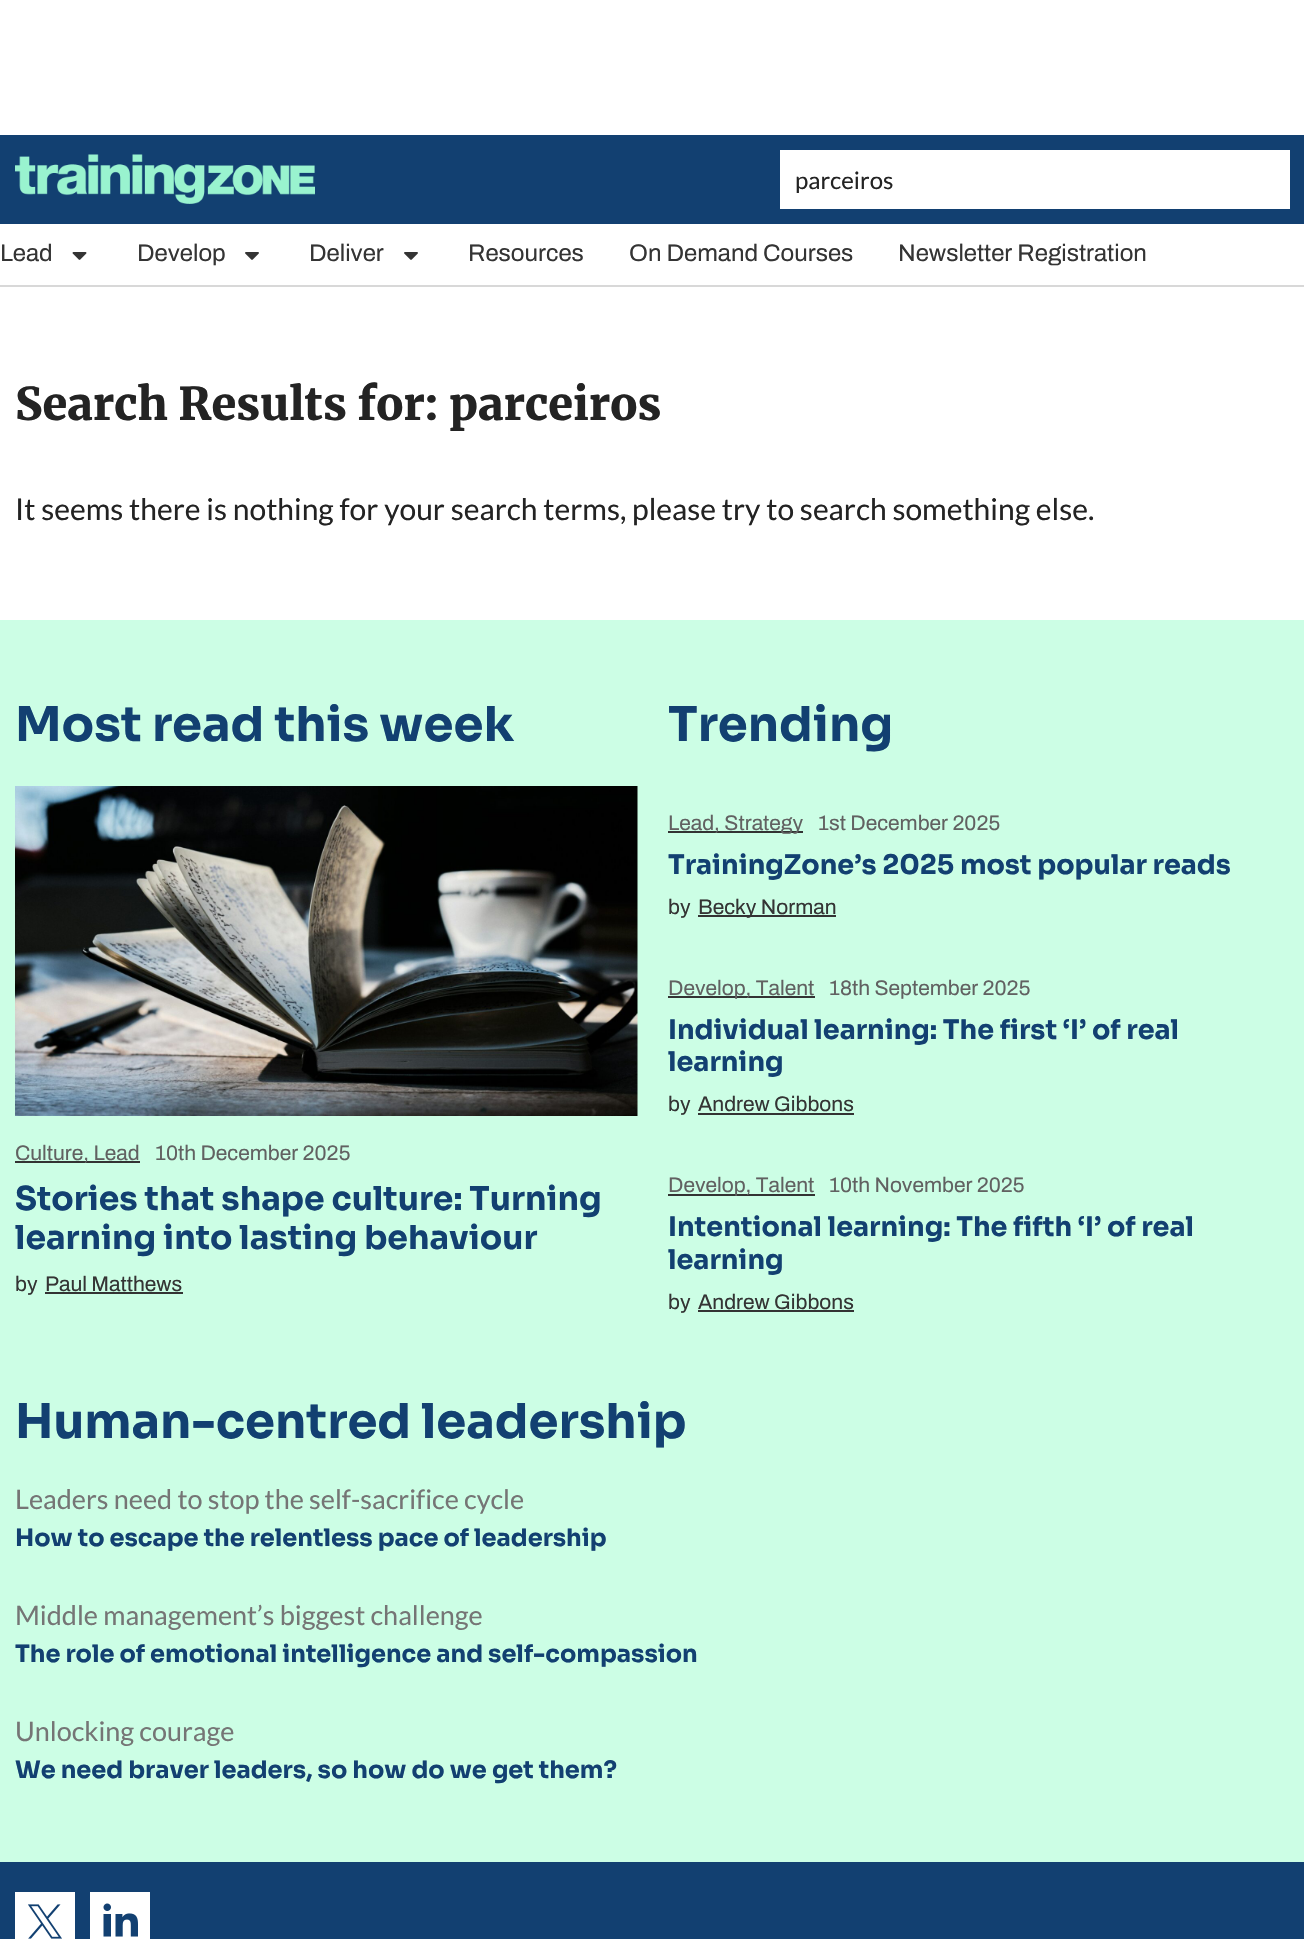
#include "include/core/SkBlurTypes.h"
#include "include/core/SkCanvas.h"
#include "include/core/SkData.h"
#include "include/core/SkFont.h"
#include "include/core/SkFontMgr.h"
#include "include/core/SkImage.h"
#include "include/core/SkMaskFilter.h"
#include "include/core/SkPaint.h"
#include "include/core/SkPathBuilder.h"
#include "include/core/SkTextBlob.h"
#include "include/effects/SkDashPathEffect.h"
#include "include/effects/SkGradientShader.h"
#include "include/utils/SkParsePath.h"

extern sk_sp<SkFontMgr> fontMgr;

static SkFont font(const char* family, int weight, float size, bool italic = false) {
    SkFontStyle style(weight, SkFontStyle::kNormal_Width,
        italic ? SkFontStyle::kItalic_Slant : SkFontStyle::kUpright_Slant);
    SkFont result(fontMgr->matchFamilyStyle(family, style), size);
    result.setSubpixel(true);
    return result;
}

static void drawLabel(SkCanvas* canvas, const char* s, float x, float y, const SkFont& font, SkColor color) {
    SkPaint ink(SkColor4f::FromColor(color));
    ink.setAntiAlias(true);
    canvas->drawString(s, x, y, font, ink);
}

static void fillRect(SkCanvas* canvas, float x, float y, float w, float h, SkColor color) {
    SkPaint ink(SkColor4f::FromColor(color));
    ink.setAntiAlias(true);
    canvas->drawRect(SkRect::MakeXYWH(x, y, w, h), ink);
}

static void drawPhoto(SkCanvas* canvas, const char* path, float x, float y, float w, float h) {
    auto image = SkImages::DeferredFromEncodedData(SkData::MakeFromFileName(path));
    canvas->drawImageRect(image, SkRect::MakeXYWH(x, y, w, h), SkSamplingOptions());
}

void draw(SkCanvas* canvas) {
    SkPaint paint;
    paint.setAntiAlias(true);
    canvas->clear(0xFFFFFFFF);
    fillRect(canvas, 0, 135, 1304, 89, 0xFF124071);
    drawPhoto(canvas, "assets/img1.png", 15, 154, 300, 50);
    fillRect(canvas, 780, 150, 510, 59, 0xFFFFFFFF);
    SkFont font1 = font("Lato", 400, 24);
    drawLabel(canvas, "parceiros", 795, 189, font1, 0xFF232323);
    fillRect(canvas, 0, 285, 1304, 2, 0xFFD8D8D8);
    SkFont font2 = font("Archivo", 400, 24);
    drawLabel(canvas, "Lead", 0, 261, font2, 0xFF343434);
    drawPhoto(canvas, "assets/img2.png", 72, 252, 15, 8);
    drawLabel(canvas, "Develop", 137, 261, font2, 0xFF343434);
    drawPhoto(canvas, "assets/img3.png", 245, 252, 14, 8);
    drawLabel(canvas, "Deliver", 309, 261, font2, 0xFF343434);
    drawPhoto(canvas, "assets/img3.png", 404, 252, 14, 8);
    drawLabel(canvas, "Resources", 468, 261, font2, 0xFF343434);
    drawLabel(canvas, "On Demand Courses", 629, 261, font2, 0xFF343434);
    drawLabel(canvas, "Newsletter Registration", 898, 261, font2, 0xFF343434);
    SkFont font3 = font("Merriweather", 900, 45);
    drawLabel(canvas, "Search Results for: parceiros", 15, 420, font3, 0xFF232323);
    SkFont font4 = font("Lato", 400, 30);
    drawLabel(canvas, "It seems there is nothing for your search terms, please try to search something else.", 15, 520, font4, 0xFF232323);
    fillRect(canvas, 0, 620, 1304, 1242, 0xFFCCFEE5);
    SkFont font5 = font("Sora", 700, 48);
    drawLabel(canvas, "Most read this week", 15, 741, font5, 0xFF124071);
    drawPhoto(canvas, "assets/img4.png", 15, 786, 623, 330);
    fillRect(canvas, 15, 1161, 125, 2, 0xFF333333);
    SkFont font6 = font("Archivo", 400, 21);
    drawLabel(canvas, "Culture, Lead", 15, 1160, font6, 0xFF616161);
    drawLabel(canvas, "10th December 2025", 155, 1160, font6, 0xFF616161);
    SkFont font7 = font("Sora", 700, 33);
    drawLabel(canvas, "Stories that shape culture: Turning", 15, 1210, font7, 0xFF124071);
    drawLabel(canvas, "learning into lasting behaviour", 15, 1249, font7, 0xFF124071);
    drawLabel(canvas, "by", 15, 1291, font6, 0xFF343434);
    drawLabel(canvas, "Paul Matthews", 45, 1291, font6, 0xFF343434);
    fillRect(canvas, 45, 1292, 138, 2, 0xFF333333);
    drawLabel(canvas, "Trending", 668, 741, font5, 0xFF124071);
    fillRect(canvas, 668, 831, 135, 2, 0xFF333333);
    drawLabel(canvas, "Lead, Strategy", 668, 830, font6, 0xFF616161);
    drawLabel(canvas, "1st December 2025", 818, 830, font6, 0xFF616161);
    SkFont font8 = font("Sora", 700, 27);
    drawLabel(canvas, "TrainingZone’s 2025 most popular reads", 668, 874, font8, 0xFF124071);
    drawLabel(canvas, "by", 668, 914, font6, 0xFF343434);
    fillRect(canvas, 698, 915, 138, 2, 0xFF333333);
    drawLabel(canvas, "Becky Norman", 698, 914, font6, 0xFF343434);
    fillRect(canvas, 668, 996, 147, 2, 0xFF333333);
    drawLabel(canvas, "Develop, Talent", 668, 995, font6, 0xFF616161);
    drawLabel(canvas, "18th September 2025", 829, 995, font6, 0xFF616161);
    drawLabel(canvas, "Individual learning: The first ‘I’ of real", 668, 1039, font8, 0xFF124071);
    drawLabel(canvas, "learning", 668, 1071, font8, 0xFF124071);
    drawLabel(canvas, "by", 668, 1111, font6, 0xFF343434);
    drawLabel(canvas, "Andrew Gibbons", 698, 1111, font6, 0xFF343434);
    fillRect(canvas, 698, 1113, 156, 2, 0xFF333333);
    fillRect(canvas, 668, 1194, 147, 2, 0xFF333333);
    drawLabel(canvas, "Develop, Talent", 668, 1192, font6, 0xFF616161);
    drawLabel(canvas, "10th November 2025", 829, 1192, font6, 0xFF616161);
    drawLabel(canvas, "Intentional learning: The fifth ‘I’ of real", 668, 1236, font8, 0xFF124071);
    drawLabel(canvas, "learning", 668, 1269, font8, 0xFF124071);
    drawLabel(canvas, "by", 668, 1309, font6, 0xFF343434);
    drawLabel(canvas, "Andrew Gibbons", 698, 1309, font6, 0xFF343434);
    fillRect(canvas, 698, 1310, 156, 2, 0xFF333333);
    drawLabel(canvas, "Human-centred leadership", 15, 1438, font5, 0xFF124071);
    SkFont font9 = font("Lato", 400, 27);
    drawLabel(canvas, "Leaders need to stop the self-sacrifice cycle", 15, 1509, font9, 0xFF757575);
    SkFont font10 = font("Sora", 700, 24);
    drawLabel(canvas, "How to escape the relentless pace of leadership", 15, 1546, font10, 0xFF124071);
    drawLabel(canvas, "Middle management’s biggest challenge", 15, 1625, font9, 0xFF757575);
    drawLabel(canvas, "The role of emotional intelligence and self-compassion", 15, 1662, font10, 0xFF124071);
    drawLabel(canvas, "Unlocking courage", 15, 1741, font9, 0xFF757575);
    drawLabel(canvas, "We need braver leaders, so how do we get them?", 15, 1778, font10, 0xFF124071);
    fillRect(canvas, 0, 1862, 1304, 77, 0xFF124071);
    fillRect(canvas, 15, 1892, 60, 47, 0xFFFFFFFF);
    drawPhoto(canvas, "assets/img5.png", 28, 1904, 34, 35);
    fillRect(canvas, 90, 1892, 60, 47, 0xFFFFFFFF);
    drawPhoto(canvas, "assets/img6.png", 103, 1903, 35, 34);
}
